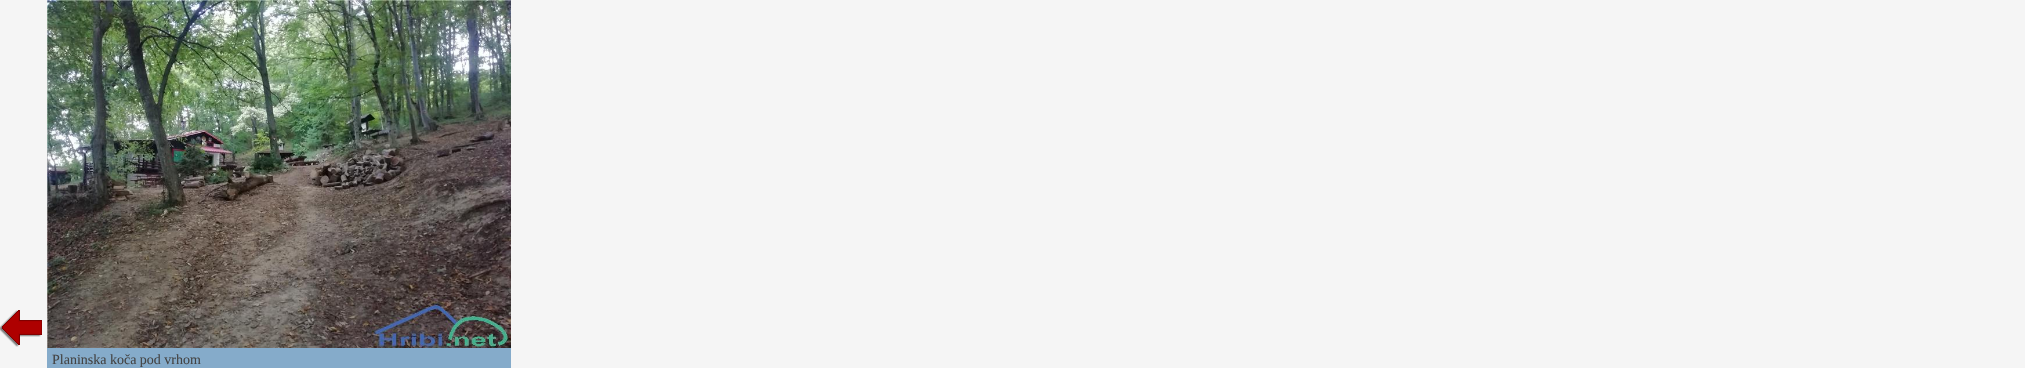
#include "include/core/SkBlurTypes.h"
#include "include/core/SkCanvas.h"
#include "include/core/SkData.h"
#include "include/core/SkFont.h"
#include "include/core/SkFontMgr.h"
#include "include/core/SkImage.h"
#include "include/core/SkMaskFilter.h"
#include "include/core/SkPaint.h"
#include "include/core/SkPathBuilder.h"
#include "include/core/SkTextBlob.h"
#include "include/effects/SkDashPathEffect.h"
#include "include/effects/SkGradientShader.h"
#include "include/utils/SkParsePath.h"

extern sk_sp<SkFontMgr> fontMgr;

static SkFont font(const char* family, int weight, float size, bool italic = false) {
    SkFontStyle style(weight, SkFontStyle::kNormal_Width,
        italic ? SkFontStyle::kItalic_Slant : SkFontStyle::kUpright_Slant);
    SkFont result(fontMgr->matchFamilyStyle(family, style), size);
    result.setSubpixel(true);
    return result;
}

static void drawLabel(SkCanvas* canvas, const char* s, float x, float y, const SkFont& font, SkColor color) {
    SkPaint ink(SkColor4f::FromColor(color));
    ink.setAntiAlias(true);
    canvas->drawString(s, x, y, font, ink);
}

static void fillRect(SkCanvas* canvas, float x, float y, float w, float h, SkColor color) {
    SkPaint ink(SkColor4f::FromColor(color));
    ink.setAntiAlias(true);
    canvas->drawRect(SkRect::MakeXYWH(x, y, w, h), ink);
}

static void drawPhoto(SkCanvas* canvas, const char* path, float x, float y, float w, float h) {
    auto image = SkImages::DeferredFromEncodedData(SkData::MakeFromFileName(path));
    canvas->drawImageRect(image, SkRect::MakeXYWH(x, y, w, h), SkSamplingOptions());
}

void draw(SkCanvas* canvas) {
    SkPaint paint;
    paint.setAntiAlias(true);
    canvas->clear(0xFFF5F5F5);
    drawPhoto(canvas, "assets/img1.png", 0, 310, 42, 37);
    fillRect(canvas, 47, 348, 464, 20, 0xFF85ABCA);
    drawPhoto(canvas, "assets/img2.png", 47, 0, 464, 348);
    SkFont font1 = font("Liberation Serif", 400, 14);
    drawLabel(canvas, "Planinska koča pod vrhom", 52, 364, font1, 0xFF444444);
}
